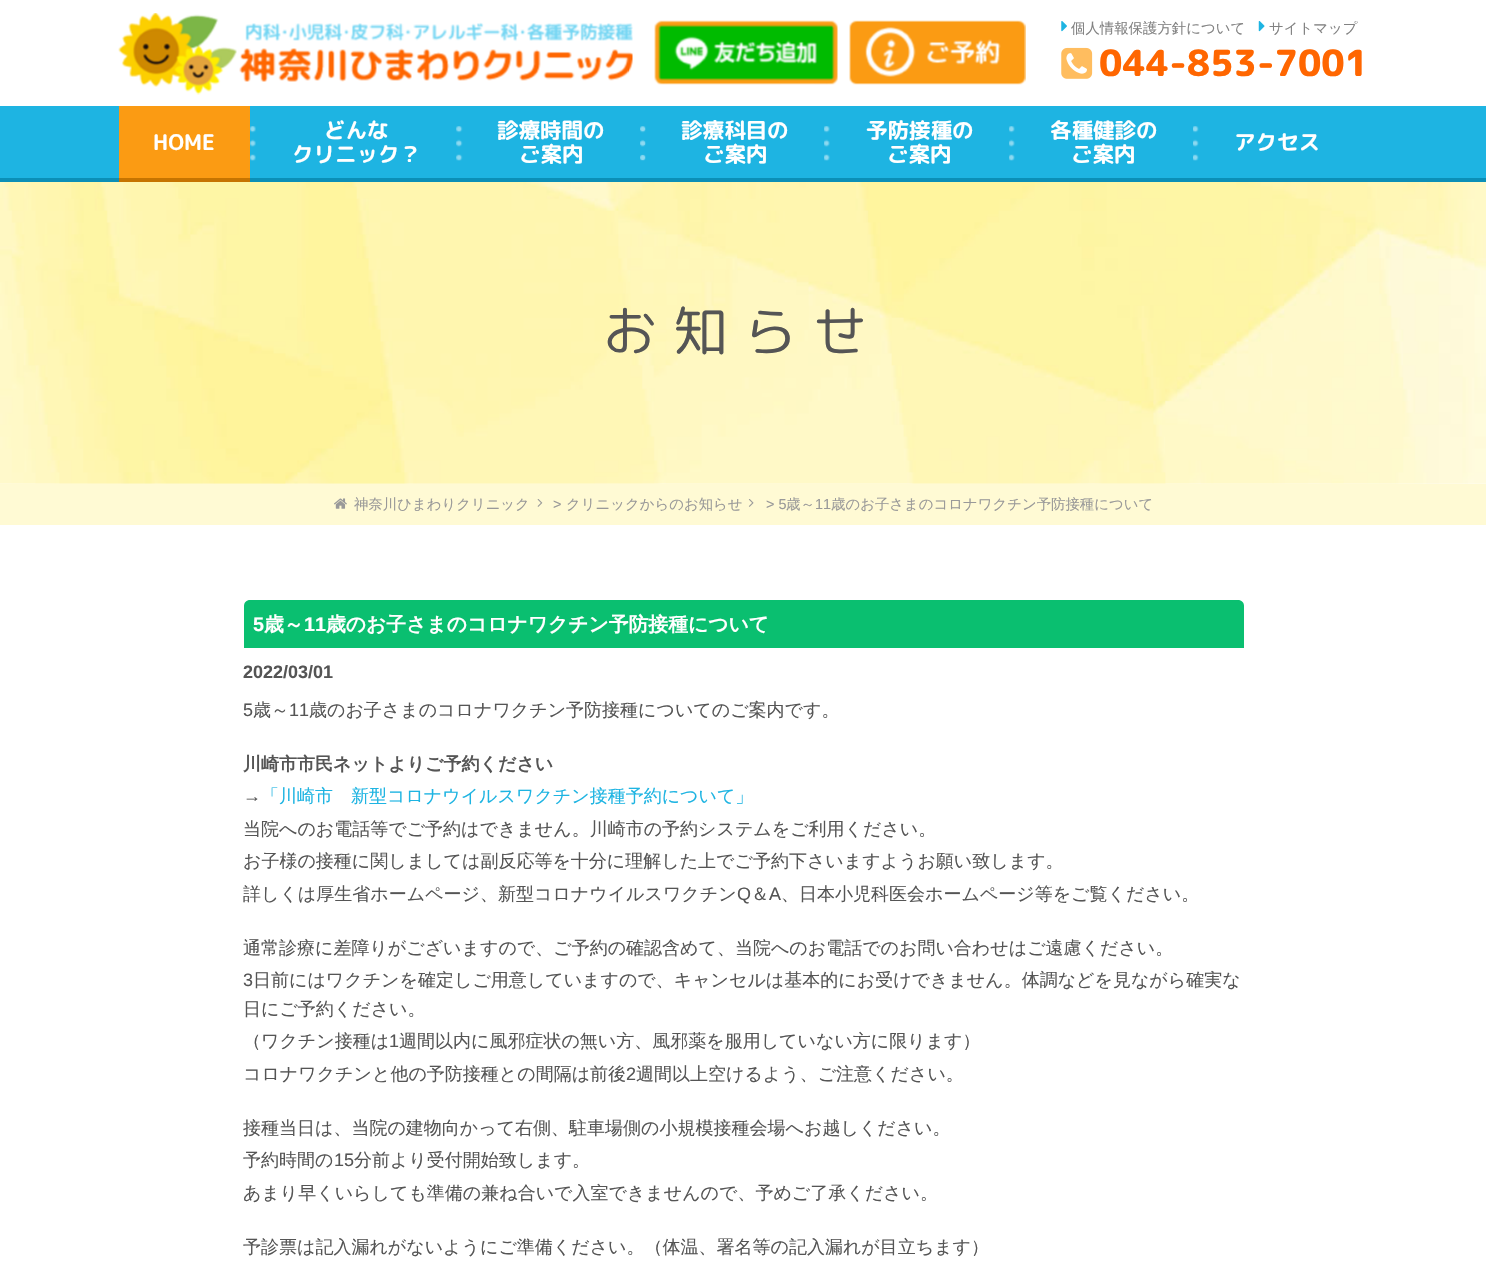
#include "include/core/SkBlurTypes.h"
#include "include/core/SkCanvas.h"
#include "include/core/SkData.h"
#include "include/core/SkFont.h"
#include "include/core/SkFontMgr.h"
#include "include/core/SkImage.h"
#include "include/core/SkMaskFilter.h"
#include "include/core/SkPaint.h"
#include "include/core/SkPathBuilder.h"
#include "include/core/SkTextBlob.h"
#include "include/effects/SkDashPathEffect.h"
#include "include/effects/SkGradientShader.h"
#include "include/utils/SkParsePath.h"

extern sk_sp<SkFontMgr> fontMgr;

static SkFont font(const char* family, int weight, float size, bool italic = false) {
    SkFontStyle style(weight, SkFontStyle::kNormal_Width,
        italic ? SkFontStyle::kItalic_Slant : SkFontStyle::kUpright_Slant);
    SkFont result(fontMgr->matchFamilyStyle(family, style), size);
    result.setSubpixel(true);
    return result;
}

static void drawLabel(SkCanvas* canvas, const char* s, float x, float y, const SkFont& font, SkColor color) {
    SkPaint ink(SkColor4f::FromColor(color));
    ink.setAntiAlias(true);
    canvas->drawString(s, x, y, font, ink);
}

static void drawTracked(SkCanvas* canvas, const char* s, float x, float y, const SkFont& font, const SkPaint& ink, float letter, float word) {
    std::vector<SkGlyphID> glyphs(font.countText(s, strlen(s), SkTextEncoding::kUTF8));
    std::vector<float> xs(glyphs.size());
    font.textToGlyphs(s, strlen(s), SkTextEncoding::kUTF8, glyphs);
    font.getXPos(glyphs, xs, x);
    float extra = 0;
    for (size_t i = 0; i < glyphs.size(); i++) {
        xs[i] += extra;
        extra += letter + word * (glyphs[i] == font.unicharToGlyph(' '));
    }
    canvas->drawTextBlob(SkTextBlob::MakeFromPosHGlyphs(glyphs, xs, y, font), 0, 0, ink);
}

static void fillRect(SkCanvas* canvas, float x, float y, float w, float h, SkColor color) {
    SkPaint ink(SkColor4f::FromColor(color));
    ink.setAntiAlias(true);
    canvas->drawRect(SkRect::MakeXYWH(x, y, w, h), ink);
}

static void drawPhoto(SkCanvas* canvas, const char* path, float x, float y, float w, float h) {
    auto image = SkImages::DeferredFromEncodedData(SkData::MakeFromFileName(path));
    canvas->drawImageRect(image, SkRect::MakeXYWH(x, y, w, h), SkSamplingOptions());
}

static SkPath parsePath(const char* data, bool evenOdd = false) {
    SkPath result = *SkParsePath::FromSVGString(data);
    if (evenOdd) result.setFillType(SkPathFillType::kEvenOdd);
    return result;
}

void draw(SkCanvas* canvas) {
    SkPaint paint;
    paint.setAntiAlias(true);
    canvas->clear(0xFFFFFFFF);
    drawPhoto(canvas, "assets/img1.png", 118, 13, 515, 82);
    drawPhoto(canvas, "assets/img2.png", 654, 20, 184, 65);
    drawPhoto(canvas, "assets/img3.png", 849, 20, 177, 65);
    drawPhoto(canvas, "assets/img4.png", 1061, 21, 6, 11);
    SkFont font1 = font("WenQuanYi Zen Hei", 500, 14.4f);
    drawLabel(canvas, "個人情報保護方針について", 1071, 33, font1, 0xFF828282);
    drawPhoto(canvas, "assets/img5.png", 1258, 21, 7, 11);
    drawLabel(canvas, "サイトマップ", 1269, 33, font1, 0xFF828282);
    drawPhoto(canvas, "assets/img6.png", 1061, 47, 32, 32);
    SkFont font2 = font("Rounded Mplus 1c", 800, 36);
    drawLabel(canvas, "044-853-7001", 1099, 76, font2, 0xFFFF6600);
    fillRect(canvas, 0, 106, 1486, 72, 0xFF1EB4E2);
    fillRect(canvas, 0, 178, 1486, 4, 0xFF0B8FB7);
    drawPhoto(canvas, "assets/img7.png", 250, 126, 6, 35);
    fillRect(canvas, 119, 106, 131, 72, 0xFFFB9B13);
    fillRect(canvas, 119, 178, 131, 4, 0xFFC67400);
    SkFont font3 = font("Rounded Mplus 1c Bold", 700, 21.5f);
    drawLabel(canvas, "HOME", 153, 150, font3, 0xFFFFFFFF);
    drawPhoto(canvas, "assets/img8.png", 456, 126, 7, 35);
    drawLabel(canvas, "どんな", 324, 138, font3, 0xFFFFFFFF);
    drawLabel(canvas, "クリニック？", 292, 162, font3, 0xFFFFFFFF);
    drawPhoto(canvas, "assets/img9.png", 640, 126, 6, 35);
    drawLabel(canvas, "診療時間の", 497, 138, font3, 0xFFFFFFFF);
    drawLabel(canvas, "ご案内", 519, 162, font3, 0xFFFFFFFF);
    drawPhoto(canvas, "assets/img10.png", 824, 126, 6, 35);
    drawLabel(canvas, "診療科目の", 681, 138, font3, 0xFFFFFFFF);
    drawLabel(canvas, "ご案内", 703, 162, font3, 0xFFFFFFFF);
    drawPhoto(canvas, "assets/img11.png", 1009, 126, 6, 35);
    drawLabel(canvas, "予防接種の", 866, 138, font3, 0xFFFFFFFF);
    drawLabel(canvas, "ご案内", 887, 162, font3, 0xFFFFFFFF);
    drawPhoto(canvas, "assets/img12.png", 1193, 126, 6, 35);
    drawLabel(canvas, "各種健診の", 1050, 138, font3, 0xFFFFFFFF);
    drawLabel(canvas, "ご案内", 1071, 162, font3, 0xFFFFFFFF);
    drawLabel(canvas, "アクセス", 1234, 150, font3, 0xFFFFFFFF);
    drawPhoto(canvas, "assets/img13.png", 0, 182, 1486, 302);
    SkFont font4 = font("Rounded Mplus 1c", 400, 54);
    paint.setColor(0xFF555555);
    drawTracked(canvas, "お知らせ", 603, 351, font4, paint, 16, 0);
    fillRect(canvas, 0, 484, 1486, 41, 0xFFFFFAD4);
    drawPhoto(canvas, "assets/img14.png", 334, 498, 13, 11);
    drawLabel(canvas, "神奈川ひまわりクリニック", 354, 509, font1, 0xFF999999);
    drawPhoto(canvas, "assets/img15.png", 537, 499, 6, 8);
    SkFont font5 = font("Liberation Sans", 400, 14.4f);
    drawLabel(canvas, ">", 553, 509, font5, 0xFF999999);
    drawLabel(canvas, "クリニックからのお知らせ", 566, 509, font1, 0xFF999999);
    drawPhoto(canvas, "assets/img16.png", 748, 499, 6, 8);
    drawLabel(canvas, "> 5", 766, 509, font5, 0xFF999999);
    drawLabel(canvas, "歳～", 786, 509, font1, 0xFF999999);
    drawLabel(canvas, "11", 815, 509, font5, 0xFF999999);
    drawLabel(canvas, "歳のお子さまのコロナワクチン予防接種について", 831, 509, font1, 0xFF999999);
    paint.setColor(0xFF0ABF70);
    canvas->drawPath(parsePath("M250 600H1238C1241.5 600 1244 602.5 1244 606V648H244V606C244 602.5 246.5 600 250 600Z"), paint);
    SkFont font6 = font("Liberation Sans", 700, 19.8f);
    drawLabel(canvas, "5", 253, 631, font6, 0xFFFFFFFF);
    SkFont font7 = font("WenQuanYi Zen Hei", 700, 19.8f);
    drawLabel(canvas, "歳～", 264, 631, font7, 0xFFFFFFFF);
    drawLabel(canvas, "11", 304, 631, font6, 0xFFFFFFFF);
    drawLabel(canvas, "歳のお子さまのコロナワクチン予防接種について", 326, 631, font7, 0xFFFFFFFF);
    SkFont font8 = font("Liberation Sans", 700, 18);
    drawLabel(canvas, "2022/03/01", 243, 678, font8, 0xFF555555);
    SkFont font9 = font("Liberation Sans", 400, 18);
    drawLabel(canvas, "5", 243, 716, font9, 0xFF555555);
    SkFont font10 = font("WenQuanYi Zen Hei", 500, 18);
    drawLabel(canvas, "歳～", 253, 716, font10, 0xFF555555);
    drawLabel(canvas, "11", 289, 716, font9, 0xFF555555);
    drawLabel(canvas, "歳のお子さまのコロナワクチン予防接種についてのご案内です。", 309, 716, font10, 0xFF555555);
    SkFont font11 = font("WenQuanYi Zen Hei", 700, 18);
    drawLabel(canvas, "川崎市市民ネットよりご予約ください", 243, 770, font11, 0xFF555555);
    drawLabel(canvas, "→", 243, 802, font9, 0xFF555555);
    drawLabel(canvas, "「川崎市　新型コロナウイルスワクチン接種予約について」", 261, 802, font10, 0xFF1EB4E2);
    drawLabel(canvas, "当院へのお電話等でご予約はできません。川崎市の予約システムをご利用ください。", 243, 835, font10, 0xFF555555);
    drawLabel(canvas, "お子様の接種に関しましては副反応等を十分に理解した上でご予約下さいますようお願い致します。", 243, 867, font10, 0xFF555555);
    drawLabel(canvas, "詳しくは厚生省ホームページ、新型コロナウイルスワクチン", 243, 900, font10, 0xFF555555);
    drawLabel(canvas, "Q", 737, 900, font9, 0xFF555555);
    drawLabel(canvas, "＆", 751, 900, font10, 0xFF555555);
    drawLabel(canvas, "A", 769, 900, font9, 0xFF555555);
    drawLabel(canvas, "、日本小児科医会ホームページ等をご覧ください。", 781, 900, font10, 0xFF555555);
    drawLabel(canvas, "通常診療に差障りがございますので、ご予約の確認含めて、当院へのお電話でのお問い合わせはご遠慮ください。", 243, 954, font10, 0xFF555555);
    drawLabel(canvas, "3", 243, 986, font9, 0xFF555555);
    drawLabel(canvas, "日前にはワクチンを確定しご用意していますので、キャンセルは基本的にお受けできません。体調などを見ながら確実な", 253, 986, font10, 0xFF555555);
    drawLabel(canvas, "日にご予約ください。", 243, 1015, font10, 0xFF555555);
    drawLabel(canvas, "（ワクチン接種は", 243, 1047, font10, 0xFF555555);
    drawLabel(canvas, "1", 389, 1047, font9, 0xFF555555);
    drawLabel(canvas, "週間以内に風邪症状の無い方、風邪薬を服用していない方に限ります）", 399, 1047, font10, 0xFF555555);
    drawLabel(canvas, "コロナワクチンと他の予防接種との間隔は前後", 243, 1080, font10, 0xFF555555);
    drawLabel(canvas, "2", 626, 1080, font9, 0xFF555555);
    drawLabel(canvas, "週間以上空けるよう、ご注意ください。", 636, 1080, font10, 0xFF555555);
    drawLabel(canvas, "接種当日は、当院の建物向かって右側、駐車場側の小規模接種会場へお越しください。", 243, 1134, font10, 0xFF555555);
    drawLabel(canvas, "予約時間の", 243, 1166, font10, 0xFF555555);
    drawLabel(canvas, "15", 334, 1166, font9, 0xFF555555);
    drawLabel(canvas, "分前より受付開始致します。", 354, 1166, font10, 0xFF555555);
    drawLabel(canvas, "あまり早くいらしても準備の兼ね合いで入室できませんので、予めご了承ください。", 243, 1199, font10, 0xFF555555);
    drawLabel(canvas, "予診票は記入漏れがないようにご準備ください。（体温、署名等の記入漏れが目立ちます）", 243, 1253, font10, 0xFF555555);
}
